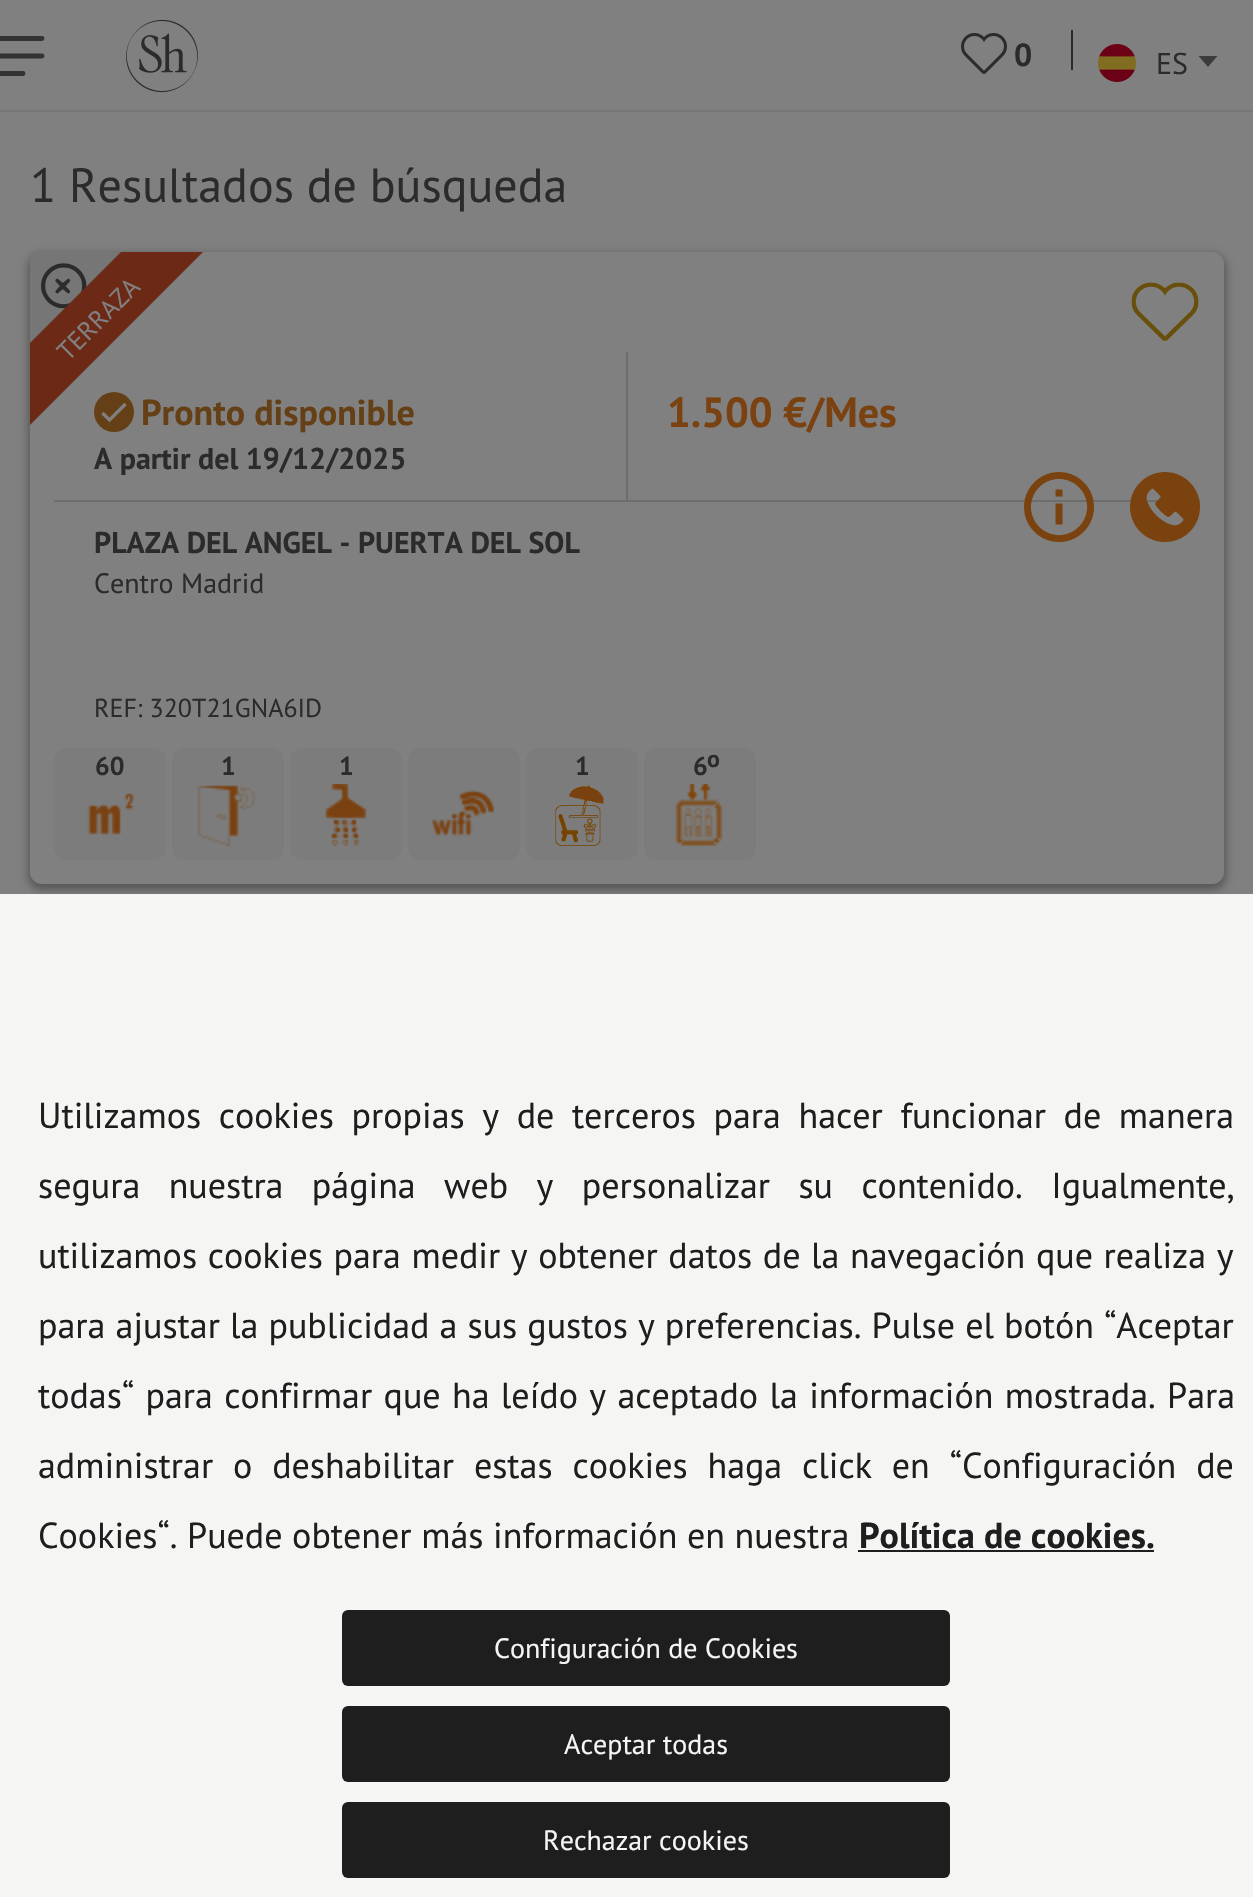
#include "include/core/SkBlurTypes.h"
#include "include/core/SkCanvas.h"
#include "include/core/SkData.h"
#include "include/core/SkFont.h"
#include "include/core/SkFontMgr.h"
#include "include/core/SkImage.h"
#include "include/core/SkMaskFilter.h"
#include "include/core/SkPaint.h"
#include "include/core/SkPathBuilder.h"
#include "include/core/SkTextBlob.h"
#include "include/effects/SkDashPathEffect.h"
#include "include/effects/SkGradientShader.h"
#include "include/utils/SkParsePath.h"

extern sk_sp<SkFontMgr> fontMgr;

static SkFont font(const char* family, int weight, float size, bool italic = false) {
    SkFontStyle style(weight, SkFontStyle::kNormal_Width,
        italic ? SkFontStyle::kItalic_Slant : SkFontStyle::kUpright_Slant);
    SkFont result(fontMgr->matchFamilyStyle(family, style), size);
    result.setSubpixel(true);
    return result;
}

static void drawLabel(SkCanvas* canvas, const char* s, float x, float y, const SkFont& font, SkColor color) {
    SkPaint ink(SkColor4f::FromColor(color));
    ink.setAntiAlias(true);
    canvas->drawString(s, x, y, font, ink);
}

static void drawTracked(SkCanvas* canvas, const char* s, float x, float y, const SkFont& font, const SkPaint& ink, float letter, float word) {
    std::vector<SkGlyphID> glyphs(font.countText(s, strlen(s), SkTextEncoding::kUTF8));
    std::vector<float> xs(glyphs.size());
    font.textToGlyphs(s, strlen(s), SkTextEncoding::kUTF8, glyphs);
    font.getXPos(glyphs, xs, x);
    float extra = 0;
    for (size_t i = 0; i < glyphs.size(); i++) {
        xs[i] += extra;
        extra += letter + word * (glyphs[i] == font.unicharToGlyph(' '));
    }
    canvas->drawTextBlob(SkTextBlob::MakeFromPosHGlyphs(glyphs, xs, y, font), 0, 0, ink);
}

static void fillRect(SkCanvas* canvas, float x, float y, float w, float h, SkColor color) {
    SkPaint ink(SkColor4f::FromColor(color));
    ink.setAntiAlias(true);
    canvas->drawRect(SkRect::MakeXYWH(x, y, w, h), ink);
}

static void fillRRect(SkCanvas* canvas, float x, float y, float w, float h, float radius, SkColor color) {
    SkPaint ink(SkColor4f::FromColor(color));
    ink.setAntiAlias(true);
    canvas->drawRoundRect(SkRect::MakeXYWH(x, y, w, h), radius, radius, ink);
}

static void drawPhoto(SkCanvas* canvas, const char* path, float x, float y, float w, float h) {
    auto image = SkImages::DeferredFromEncodedData(SkData::MakeFromFileName(path));
    canvas->drawImageRect(image, SkRect::MakeXYWH(x, y, w, h), SkSamplingOptions());
}

static SkPath parsePath(const char* data, bool evenOdd = false) {
    SkPath result = *SkParsePath::FromSVGString(data);
    if (evenOdd) result.setFillType(SkPathFillType::kEvenOdd);
    return result;
}

void draw(SkCanvas* canvas) {
    SkPaint paint;
    paint.setAntiAlias(true);
    canvas->clear(0xFF808080);
    fillRect(canvas, 0, 110, 1253, 2, 0xFF767676);
    paint.setStroke(true);
    paint.setStrokeWidth(4.9f);
    paint.setStrokeCap(SkPaint::kRound_Cap);
    paint.setColor(0xFF333333);
    canvas->drawPath(parsePath("M-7.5 38.5H42M-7.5 56H42M-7.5 73.5H23"), paint);
    drawPhoto(canvas, "assets/img1.png", 126, 19, 72, 74);
    drawPhoto(canvas, "assets/img2.png", 961, 33, 46, 41);
    SkFont font1 = font("PT Sans", 700, 32);
    drawLabel(canvas, "0", 1014, 66, font1, 0xFF2B2B2B);
    fillRect(canvas, 1071, 30, 2, 40, 0xFF2B2B2B);
    paint.setStroke(false);
    paint.setColor(0xFF3C3C3C);
    canvas->drawPath(parsePath("M1217.5 56L1208 67L1198.5 56Z"), paint);
    drawPhoto(canvas, "assets/img3.png", 1098, 44, 38, 38);
    SkFont font2 = font("PT Sans", 400, 30);
    drawLabel(canvas, "ES", 1156, 74, font2, 0xFF2B2B2B);
    SkFont font3 = font("PT Sans", 400, 48);
    drawLabel(canvas, "1 Resultados de búsqueda", 30, 202, font3, 0xFF2B2B2B);
    paint.setColor(0x52000000);
    paint.setMaskFilter(SkMaskFilter::MakeBlur(kNormal_SkBlurStyle, 4));
    canvas->drawRoundRect(SkRect::MakeXYWH(28, 254, 1198, 636), 14, 14, paint);
    paint.setMaskFilter(nullptr);
    fillRRect(canvas, 30, 252, 1194, 632, 12, 0xFF808080);
    drawPhoto(canvas, "assets/img4.png", 30, 252, 91, 91);
    paint.setColor(0xFF654016);
    canvas->drawCircle(114, 412, 20, paint);
    SkFont font4 = font("PT Sans", 700, 36);
    drawLabel(canvas, "Pronto disponible", 141, 425, font4, 0xFF654016);
    paint.setStroke(true);
    paint.setStrokeWidth(3.3f);
    paint.setStrokeCap(SkPaint::kButt_Cap);
    paint.setColor(0xFF808080);
    canvas->drawPath(parsePath("M102.5 413L109.5 420L125.5 404"), paint);
    paint.setStroke(false);
    paint.setColor(0xFF6C2916);
    canvas->drawPath(parsePath("M203 252L30 425V343L121 252Z"), paint);
    SkFont font5 = font("PT Sans", 400, 26);
    canvas->save();
    canvas->rotate(-45, 68, 362);
    drawLabel(canvas, "TERRAZA", 68, 362, font5, 0xFF808080);
    canvas->restore();
    drawPhoto(canvas, "assets/img5.png", 1131, 282, 68, 59);
    fillRect(canvas, 626, 352, 2, 148, 0xFF6D6D6D);
    SkFont font6 = font("PT Sans", 700, 30);
    drawLabel(canvas, "A partir del 19/12/2025", 94, 469, font6, 0xFF2B2B2B);
    SkFont font7 = font("PT Sans", 700, 42);
    drawLabel(canvas, "1.500 €/Mes", 667, 427, font7, 0xFF7A4111);
    fillRect(canvas, 54, 500, 1146, 2, 0xFF6D6D6D);
    drawLabel(canvas, "PLAZA DEL ANGEL - PUERTA DEL SOL", 94, 553, font6, 0xFF2B2B2B);
    SkFont font8 = font("PT Sans", 400, 28);
    drawLabel(canvas, "Centro Madrid", 94, 593, font8, 0xFF2B2B2B);
    drawLabel(canvas, "REF: 320T21GNA6ID", 94, 717, font5, 0xFF2B2B2B);
    fillRRect(canvas, 54, 748, 112, 112, 12, 0xFF7C7C7C);
    SkFont font9 = font("PT Sans", 700, 26);
    drawLabel(canvas, "60", 95, 775, font9, 0xFF2B2B2B);
    drawPhoto(canvas, "assets/img6.png", 87, 793, 48, 42);
    fillRRect(canvas, 172, 748, 112, 112, 12, 0xFF7C7C7C);
    drawLabel(canvas, "1", 221, 775, font9, 0xFF2B2B2B);
    drawPhoto(canvas, "assets/img7.png", 197, 785, 60, 61);
    fillRRect(canvas, 290, 748, 112, 112, 12, 0xFF7C7C7C);
    drawLabel(canvas, "1", 339, 775, font9, 0xFF2B2B2B);
    drawPhoto(canvas, "assets/img8.png", 325, 784, 42, 62);
    fillRRect(canvas, 408, 748, 112, 112, 12, 0xFF7C7C7C);
    drawPhoto(canvas, "assets/img9.png", 432, 789, 62, 48);
    fillRRect(canvas, 526, 748, 112, 112, 12, 0xFF7C7C7C);
    drawLabel(canvas, "1", 575, 775, font9, 0xFF2B2B2B);
    drawPhoto(canvas, "assets/img10.png", 555, 785, 49, 61);
    fillRRect(canvas, 644, 748, 112, 112, 12, 0xFF7C7C7C);
    drawLabel(canvas, "6", 693, 775, font9, 0xFF2B2B2B);
    SkFont font10 = font("PT Sans", 700, 24);
    drawLabel(canvas, "o", 707, 767, font10, 0xFF2B2B2B);
    drawPhoto(canvas, "assets/img11.png", 675, 784, 48, 62);
    drawPhoto(canvas, "assets/img12.png", 1024, 472, 70, 70);
    drawPhoto(canvas, "assets/img13.png", 1130, 472, 70, 70);
    fillRect(canvas, 0, 894, 1253, 1003, 0xFFF5F5F4);
    SkFont font11 = font("PT Sans", 400, 36);
    paint.setColor(0xFF1E1E1E);
    drawTracked(canvas, "Utilizamos cookies propias y de terceros para hacer funcionar de manera", 38, 1128, font11, paint, 0, 8);
    drawTracked(canvas, "segura nuestra página web y personalizar su contenido. Igualmente,", 38, 1198, font11, paint, 0, 18.75f);
    drawTracked(canvas, "utilizamos cookies para medir y obtener datos de la navegación que realiza y", 38, 1268, font11, paint, 0, 1);
    drawTracked(canvas, "para ajustar la publicidad a sus gustos y preferencias. Pulse el botón “Aceptar", 38, 1338, font11, paint, 0, 0.5f);
    drawTracked(canvas, "todas“ para confirmar que ha leído y aceptado la información mostrada. Para", 38, 1408, font11, paint, 0, 1.75f);
    drawTracked(canvas, "administrar o deshabilitar estas cookies haga click en “Configuración de", 38, 1478, font11, paint, 0, 10.25f);
    drawLabel(canvas, "Cookies“. Puede obtener más información en nuestra", 38, 1548, font11, 0xFF1E1E1E);
    drawLabel(canvas, "Política de cookies.", 859, 1548, font4, 0xFF1E1E1E);
    fillRect(canvas, 858, 1550, 296, 2, 0xFF1E1E1E);
    fillRRect(canvas, 342, 1610, 608, 76, 6, 0xFF1E1E1E);
    drawLabel(canvas, "Configuración de Cookies", 494, 1658, font8, 0xFFF5F5F4);
    fillRRect(canvas, 342, 1706, 608, 76, 6, 0xFF1E1E1E);
    drawLabel(canvas, "Aceptar todas", 564, 1754, font8, 0xFFF5F5F4);
    fillRRect(canvas, 342, 1802, 608, 76, 6, 0xFF1E1E1E);
    drawLabel(canvas, "Rechazar cookies", 543, 1850, font8, 0xFFF5F5F4);
}
